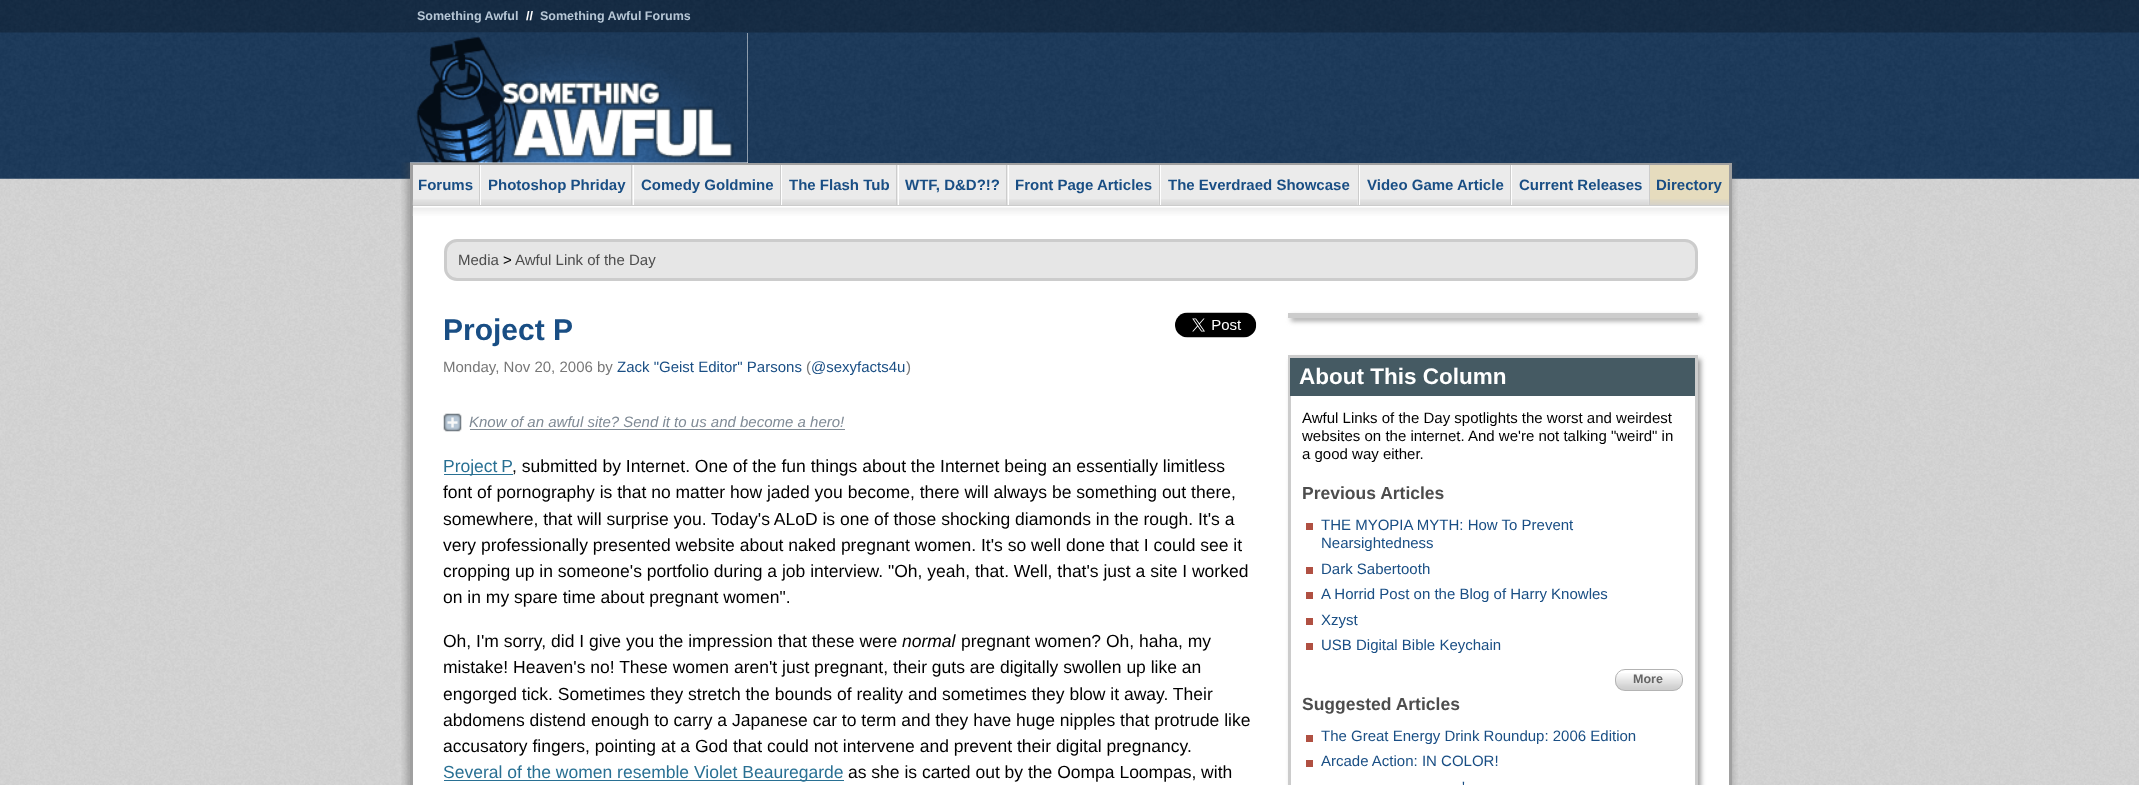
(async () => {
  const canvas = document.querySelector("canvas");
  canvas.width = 2139;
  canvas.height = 785;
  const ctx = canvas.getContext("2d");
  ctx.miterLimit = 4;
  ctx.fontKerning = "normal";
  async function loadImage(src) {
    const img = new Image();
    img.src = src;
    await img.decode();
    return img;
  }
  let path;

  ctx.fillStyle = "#ffffff";
  ctx.fillRect(0, 0, 2139, 785);
  ctx.drawImage(await loadImage("img/1.png"), 0, 178, 2139, 607);
  ctx.drawImage(await loadImage("img/2.png"), 0, 0, 2139, 179);
  ctx.drawImage(await loadImage("img/4.png"), 401, 162, 1337, 623);
  ctx.fillRect(410, 33, 338, 130);
  ctx.drawImage(await loadImage("img/3.png"), 410, 32, 338, 131);
  for (const [x, y, w, h, color] of [
    [413, 206, 1316, 579, "#ffffff"],
    [410, 163, 1321, 2, "#a0a0a0"],
    [1729, 163, 3, 622, "#a0a0a0"],
    [410, 163, 3, 622, "#a0a0a0"],
    [413, 165, 1236, 40, "#ebebeb"],
    [413, 205, 1316, 1, "#cccccc"],
  ]) {
    ctx.fillStyle = color;
    ctx.fillRect(x, y, w, h);
  }
  ctx.drawImage(await loadImage("img/5.png"), 412, 199, 67, 6);
  ctx.fillRect(479, 165, 1, 40);
  ctx.drawImage(await loadImage("img/6.png"), 481, 199, 150, 6);
  ctx.fillStyle = "#ffffff";
  ctx.fillRect(480, 165, 1, 40);
  ctx.fillStyle = "#cccccc";
  ctx.fillRect(631, 165, 1, 40);
  ctx.drawImage(await loadImage("img/7.png"), 632, 199, 148, 6);
  ctx.fillStyle = "#ffffff";
  ctx.fillRect(633, 165, 1, 40);
  ctx.fillStyle = "#cccccc";
  ctx.fillRect(780, 165, 1, 40);
  ctx.drawImage(await loadImage("img/8.png"), 782, 199, 114, 6);
  ctx.fillStyle = "#ffffff";
  ctx.fillRect(781, 165, 1, 40);
  ctx.fillStyle = "#cccccc";
  ctx.fillRect(896, 165, 1, 40);
  ctx.drawImage(await loadImage("img/9.png"), 897, 199, 109, 6);
  ctx.fillStyle = "#ffffff";
  ctx.fillRect(898, 165, 1, 40);
  ctx.fillStyle = "#cccccc";
  ctx.fillRect(1006, 165, 1, 40);
  ctx.drawImage(await loadImage("img/10.png"), 1007, 199, 152, 6);
  ctx.fillStyle = "#ffffff";
  ctx.fillRect(1008, 165, 1, 40);
  ctx.fillStyle = "#cccccc";
  ctx.fillRect(1159, 165, 1, 40);
  ctx.drawImage(await loadImage("img/11.png"), 1161, 199, 197, 6);
  ctx.fillStyle = "#ffffff";
  ctx.fillRect(1160, 165, 1, 40);
  ctx.fillStyle = "#cccccc";
  ctx.fillRect(1358, 165, 1, 40);
  ctx.drawImage(await loadImage("img/6.png"), 1360, 199, 150, 6);
  ctx.fillStyle = "#ffffff";
  ctx.fillRect(1359, 165, 1, 40);
  ctx.fillStyle = "#cccccc";
  ctx.fillRect(1510, 165, 1, 40);
  ctx.drawImage(await loadImage("img/12.png"), 1512, 199, 137, 6);
  for (const [x, y, w, h, color] of [
    [1511, 165, 1, 40, "#ffffff"],
    [1650, 165, 79, 40, "#e6dcbe"],
    [1649, 165, 1, 40, "#cccccc"],
  ]) {
    ctx.fillStyle = color;
    ctx.fillRect(x, y, w, h);
  }
  ctx.drawImage(await loadImage("img/13.png"), 1650, 199, 79, 6);
  ctx.drawImage(await loadImage("img/14.png"), 412, 207, 1317, 9);
  ctx.fillStyle = "#e6e6e6";
  ctx.beginPath();
  ctx.roundRect(445.5, 240.5, 1251, 39, 11.5);
  ctx.fill();
  ctx.strokeStyle = "#cccccc";
  ctx.lineWidth = 3;
  ctx.stroke();
  ctx.drawImage(await loadImage("img/15.png"), 1175, 312, 82, 26);
  ctx.drawImage(await loadImage("img/16.png"), 443, 413, 19, 19);
  for (const [x, y, w, h, color] of [
    [470, 429, 375, 1, "#808b96"],
    [444, 474, 69, 1, "#297093"],
    [444, 780, 400, 1, "#297093"],
  ]) {
    ctx.fillStyle = color;
    ctx.fillRect(x, y, w, h);
  }
  ctx.fillStyle = "#a0a0a0";
  ctx.filter = "blur(2.5px)";
  ctx.beginPath();
  ctx.rect(1291, 316, 410, 5);
  ctx.fill();
  ctx.filter = "none";
  ctx.fillStyle = "#cccccc";
  ctx.fillRect(1288, 313, 410, 5);
  ctx.save();
  path = new Path2D("M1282 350H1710V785H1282ZM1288 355H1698V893H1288Z");
  ctx.clip(path, "evenodd");
  ctx.fillStyle = "#a0a0a0";
  ctx.filter = "blur(2.5px)";
  ctx.beginPath();
  ctx.rect(1291, 359, 410, 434);
  ctx.fill();
  ctx.filter = "none";
  ctx.restore();
  ctx.strokeRect(1289.5, 356.5, 407, 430);
  for (const [x, y, w, h, color] of [
    [1290, 358, 405, 38, "#455a63"],
    [1306, 523, 7, 7, "#b05042"],
    [1306, 567, 7, 7, "#b05042"],
    [1306, 592, 7, 7, "#b05042"],
    [1306, 618, 7, 7, "#b05042"],
    [1306, 643, 7, 7, "#b05042"],
  ]) {
    ctx.fillStyle = color;
    ctx.fillRect(x, y, w, h);
  }
  ctx.drawImage(await loadImage("img/17.png"), 1615, 673, 68, 17);
  ctx.beginPath();
  ctx.roundRect(1615.5, 669.5, 67, 21, 9.5);
  ctx.strokeStyle = "#b3b3b3";
  ctx.lineWidth = 1;
  ctx.stroke();
  ctx.fillRect(1306, 735, 7, 7);
  ctx.fillRect(1306, 760, 7, 7);
  ctx.font = "bold 12.5px Liberation Sans";
  ctx.fillStyle = "#b7c7d6";
  ctx.fillText("Something Awful", 417, 20);
  ctx.fillStyle = "#ffffff";
  ctx.fillText("//", 526, 20);
  ctx.fillStyle = "#b7c7d6";
  ctx.fillText("Something Awful Forums", 540, 20);
  ctx.font = "bold 15px Liberation Sans";
  ctx.fillStyle = "#194e84";
  for (const [text, x, y] of [
    ["Forums", 418, 190],
    ["Photoshop Phriday", 488, 190],
    ["Comedy Goldmine", 641, 190],
    ["The Flash Tub", 789, 190],
    ["WTF, D&D?!?", 905, 190],
    ["Front Page Articles", 1015, 190],
    ["The Everdraed Showcase", 1168, 190],
    ["Video Game Article", 1367, 190],
    ["Current Releases", 1519, 190],
    ["Directory", 1656, 190],
  ]) {
    ctx.fillText(text, x, y);
  }
  ctx.font = "15px Liberation Sans";
  ctx.fillStyle = "#4d4d4d";
  ctx.fillText("Media", 458, 265);
  ctx.fillStyle = "#000000";
  ctx.fillText(">", 503, 265);
  ctx.fillStyle = "#4d4d4d";
  ctx.fillText("Awful Link of the Day", 515, 265);
  ctx.font = "bold 30px Liberation Sans";
  ctx.fillStyle = "#194e84";
  ctx.fillText("Project P", 443, 340);
  ctx.font = "15px Liberation Sans";
  ctx.fillStyle = "#777777";
  ctx.fillText("Monday, Nov 20, 2006 by", 443, 372);
  ctx.fillStyle = "#194e84";
  ctx.fillText("Zack \"Geist Editor\" Parsons", 617, 372);
  ctx.fillStyle = "#777777";
  ctx.fillText("(", 806, 372);
  ctx.fillStyle = "#194e84";
  ctx.fillText("@sexyfacts4u", 811, 372);
  ctx.fillStyle = "#777777";
  ctx.fillText(")", 906, 372);
  ctx.font = "italic 15px Liberation Sans";
  ctx.fillStyle = "#808b96";
  ctx.fillText("Know of an awful site? Send it to us and become a hero!", 469, 427);
  ctx.wordSpacing = "-1px";
  ctx.font = "17.5px Liberation Sans";
  ctx.fillStyle = "#297093";
  ctx.fillText("Project P", 443, 472);
  ctx.wordSpacing = "0px";
  ctx.fillStyle = "#000000";
  for (const [text, x, y] of [
    [", submitted by Internet. One of the fun things about the Internet being an essentially limitless", 512, 472],
    ["font of pornography is that no matter how jaded you become, there will always be something out there,", 443, 498],
    ["somewhere, that will surprise you. Today's ALoD is one of those shocking diamonds in the rough. It's a", 443, 525],
    ["very professionally presented website about naked pregnant women. It's so well done that I could see it", 443, 551],
    ["cropping up in someone's portfolio during a job interview. \"Oh, yeah, that. Well, that's just a site I worked", 443, 577],
    ["on in my spare time about pregnant women\".", 443, 603],
    ["Oh, I'm sorry, did I give you the impression that these were", 443, 647],
  ]) {
    ctx.fillText(text, x, y);
  }
  ctx.font = "italic 17.5px Liberation Sans";
  ctx.fillText("normal", 902, 647);
  ctx.font = "17.5px Liberation Sans";
  for (const [text, x, y] of [
    ["pregnant women? Oh, haha, my", 961, 647],
    ["mistake! Heaven's no! These women aren't just pregnant, their guts are digitally swollen up like an", 443, 673],
    ["engorged tick. Sometimes they stretch the bounds of reality and sometimes they blow it away. Their", 443, 700],
    ["abdomens distend enough to carry a Japanese car to term and they have huge nipples that protrude like", 443, 726],
    ["accusatory fingers, pointing at a God that could not intervene and prevent their digital pregnancy.", 443, 752],
  ]) {
    ctx.fillText(text, x, y);
  }
  ctx.fillStyle = "#297093";
  ctx.fillText("Several of the women resemble Violet Beauregarde", 443, 778);
  ctx.fillStyle = "#000000";
  ctx.fillText("as she is carted out by the Oompa Loompas, with", 848, 778);
  ctx.font = "bold 22.5px Liberation Sans";
  ctx.fillStyle = "#ffffff";
  ctx.fillText("About This Column", 1299, 384);
  ctx.font = "15px Liberation Sans";
  ctx.fillStyle = "#000000";
  for (const [text, x, y] of [
    ["Awful Links of the Day spotlights the worst and weirdest", 1302, 423],
    ["websites on the internet.", 1302, 441],
    ["And we're not talking \"weird\" in", 1468, 441],
    ["a good way either.", 1302, 459],
  ]) {
    ctx.fillText(text, x, y);
  }
  ctx.font = "bold 17.5px Liberation Sans";
  ctx.fillStyle = "#4d4d4d";
  ctx.fillText("Previous Articles", 1302, 499);
  ctx.font = "15px Liberation Sans";
  ctx.fillStyle = "#194e84";
  for (const [text, x, y] of [
    ["THE MYOPIA MYTH: How To Prevent", 1321, 530],
    ["Nearsightedness", 1321, 548],
    ["Dark Sabertooth", 1321, 574],
    ["A Horrid Post on the Blog of Harry Knowles", 1321, 599],
    ["Xzyst", 1321, 625],
    ["USB Digital Bible Keychain", 1321, 650],
  ]) {
    ctx.fillText(text, x, y);
  }
  ctx.font = "bold 12.5px Liberation Sans";
  ctx.fillStyle = "#666666";
  ctx.fillText("More", 1633, 683);
  ctx.font = "bold 17.5px Liberation Sans";
  ctx.fillStyle = "#4d4d4d";
  ctx.fillText("Suggested Articles", 1302, 710);
  ctx.font = "15px Liberation Sans";
  ctx.fillStyle = "#194e84";
  for (const [text, x, y] of [
    ["The Great Energy Drink Roundup: 2006 Edition", 1321, 741],
    ["Arcade Action: IN COLOR!", 1321, 766],
    ["'", 1462, 792],
  ]) {
    ctx.fillText(text, x, y);
  }
})();
